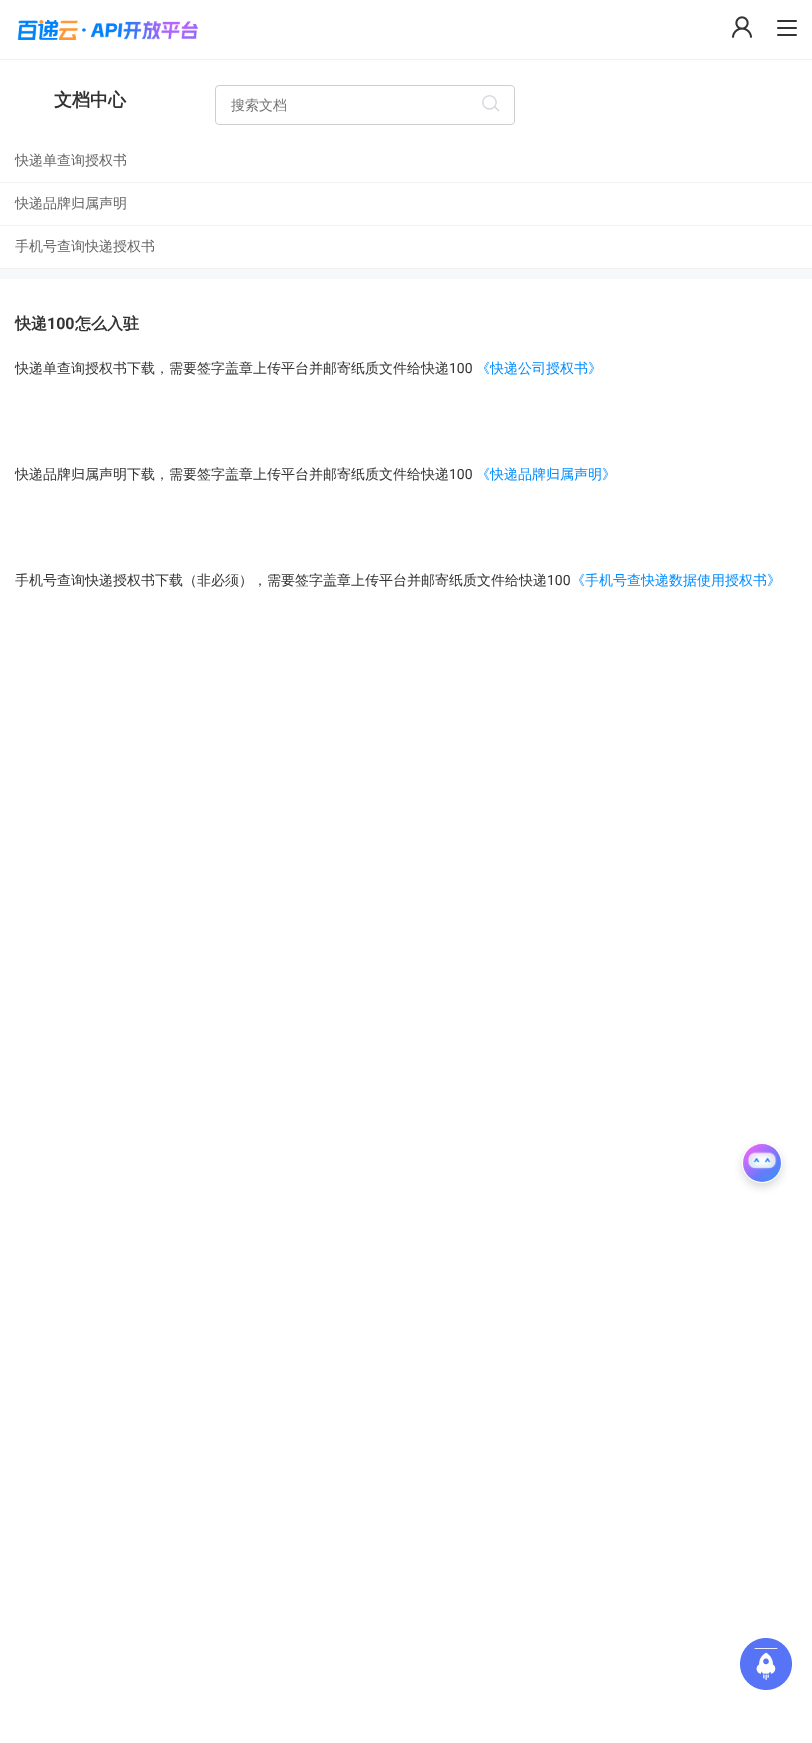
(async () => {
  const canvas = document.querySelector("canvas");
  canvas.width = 812;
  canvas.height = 1743;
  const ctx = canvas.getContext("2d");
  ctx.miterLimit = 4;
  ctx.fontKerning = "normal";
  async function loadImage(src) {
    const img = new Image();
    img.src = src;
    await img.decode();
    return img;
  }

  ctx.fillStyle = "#ffffff";
  ctx.fillRect(0, 0, 812, 1743);
  ctx.fillStyle = "#f1f1f1";
  ctx.fillRect(0, 59, 812, 1);
  ctx.drawImage(await loadImage("img/1.png"), 17, 20, 182, 20);
  ctx.drawImage(await loadImage("img/2.png"), 731, 16, 22, 22);
  ctx.fillStyle = "#333333";
  ctx.beginPath();
  ctx.roundRect(777, 20, 20, 2, 1);
  ctx.fill();
  ctx.beginPath();
  ctx.roundRect(777, 27, 20, 2, 1);
  ctx.fill();
  ctx.beginPath();
  ctx.roundRect(777, 34, 20, 2, 1);
  ctx.fill();
  ctx.beginPath();
  ctx.roundRect(215.5, 85.5, 299, 39, 3.5);
  ctx.strokeStyle = "#cecece";
  ctx.stroke();
  ctx.drawImage(await loadImage("img/3.png"), 482, 95, 18, 17);
  for (const [x, y, w, h, color] of [
    [0, 269, 812, 10, "#f7f8fa"],
    [0, 182, 812, 1, "#f1f1f1"],
    [0, 225, 812, 1, "#f1f1f1"],
    [0, 268, 812, 1, "#f1f1f1"],
  ]) {
    ctx.fillStyle = color;
    ctx.fillRect(x, y, w, h);
  }
  ctx.fillStyle = "rgba(7, 12, 20, 0.16)";
  ctx.filter = "blur(4px)";
  ctx.beginPath();
  ctx.roundRect(742, 1147, 40, 40, 20);
  ctx.fill();
  ctx.filter = "none";
  ctx.fillStyle = "#ffffff";
  ctx.beginPath();
  ctx.arc(762, 1163, 20, 0, Math.PI * 2);
  ctx.fill();
  ctx.drawImage(await loadImage("img/4.png"), 743, 1144, 38, 38);
  ctx.drawImage(await loadImage("img/5.png"), 740, 1638, 52, 52);
  ctx.font = "bold 18px WenQuanYi Zen Hei";
  ctx.fillStyle = "#333333";
  ctx.fillText("文档中心", 54, 106);
  ctx.font = "500 14px WenQuanYi Zen Hei";
  ctx.fillStyle = "#757575";
  ctx.fillText("搜索文档", 231, 110);
  ctx.fillStyle = "#666666";
  for (const [text, x, y] of [
    ["快递单查询授权书", 15, 165],
    ["快递品牌归属声明", 15, 208],
    ["手机号查询快递授权书", 15, 251],
  ]) {
    ctx.fillText(text, x, y);
  }
  ctx.font = "bold 16px WenQuanYi Zen Hei";
  ctx.fillStyle = "#333333";
  ctx.fillText("快递", 15, 329);
  ctx.font = "bold 16px Roboto";
  ctx.fillText("100", 47, 329);
  ctx.font = "bold 16px WenQuanYi Zen Hei";
  ctx.fillText("怎么入驻", 75, 329);
  ctx.font = "500 14px WenQuanYi Zen Hei";
  ctx.fillText("快递单查询授权书下载，需要签字盖章上传平台并邮寄纸质文件给快递", 15, 373);
  ctx.font = "14px Roboto";
  ctx.fillText("100", 449, 373);
  ctx.font = "500 14px WenQuanYi Zen Hei";
  ctx.fillStyle = "#008cff";
  ctx.fillText("《快递公司授权书》", 476, 373);
  ctx.fillStyle = "#333333";
  ctx.fillText("快递品牌归属声明下载，需要签字盖章上传平台并邮寄纸质文件给快递", 15, 479);
  ctx.font = "14px Roboto";
  ctx.fillText("100", 449, 479);
  ctx.font = "500 14px WenQuanYi Zen Hei";
  ctx.fillStyle = "#008cff";
  ctx.fillText("《快递品牌归属声明》", 476, 479);
  ctx.fillStyle = "#333333";
  ctx.fillText("手机号查询快递授权书下载（非必须），需要签字盖章上传平台并邮寄纸质文件给快递", 15, 585);
  ctx.font = "14px Roboto";
  ctx.fillText("100", 547, 585);
  ctx.font = "500 14px WenQuanYi Zen Hei";
  ctx.fillStyle = "#008cff";
  ctx.fillText("《手机号查快递数据使用授权书》", 571, 585);
})();
